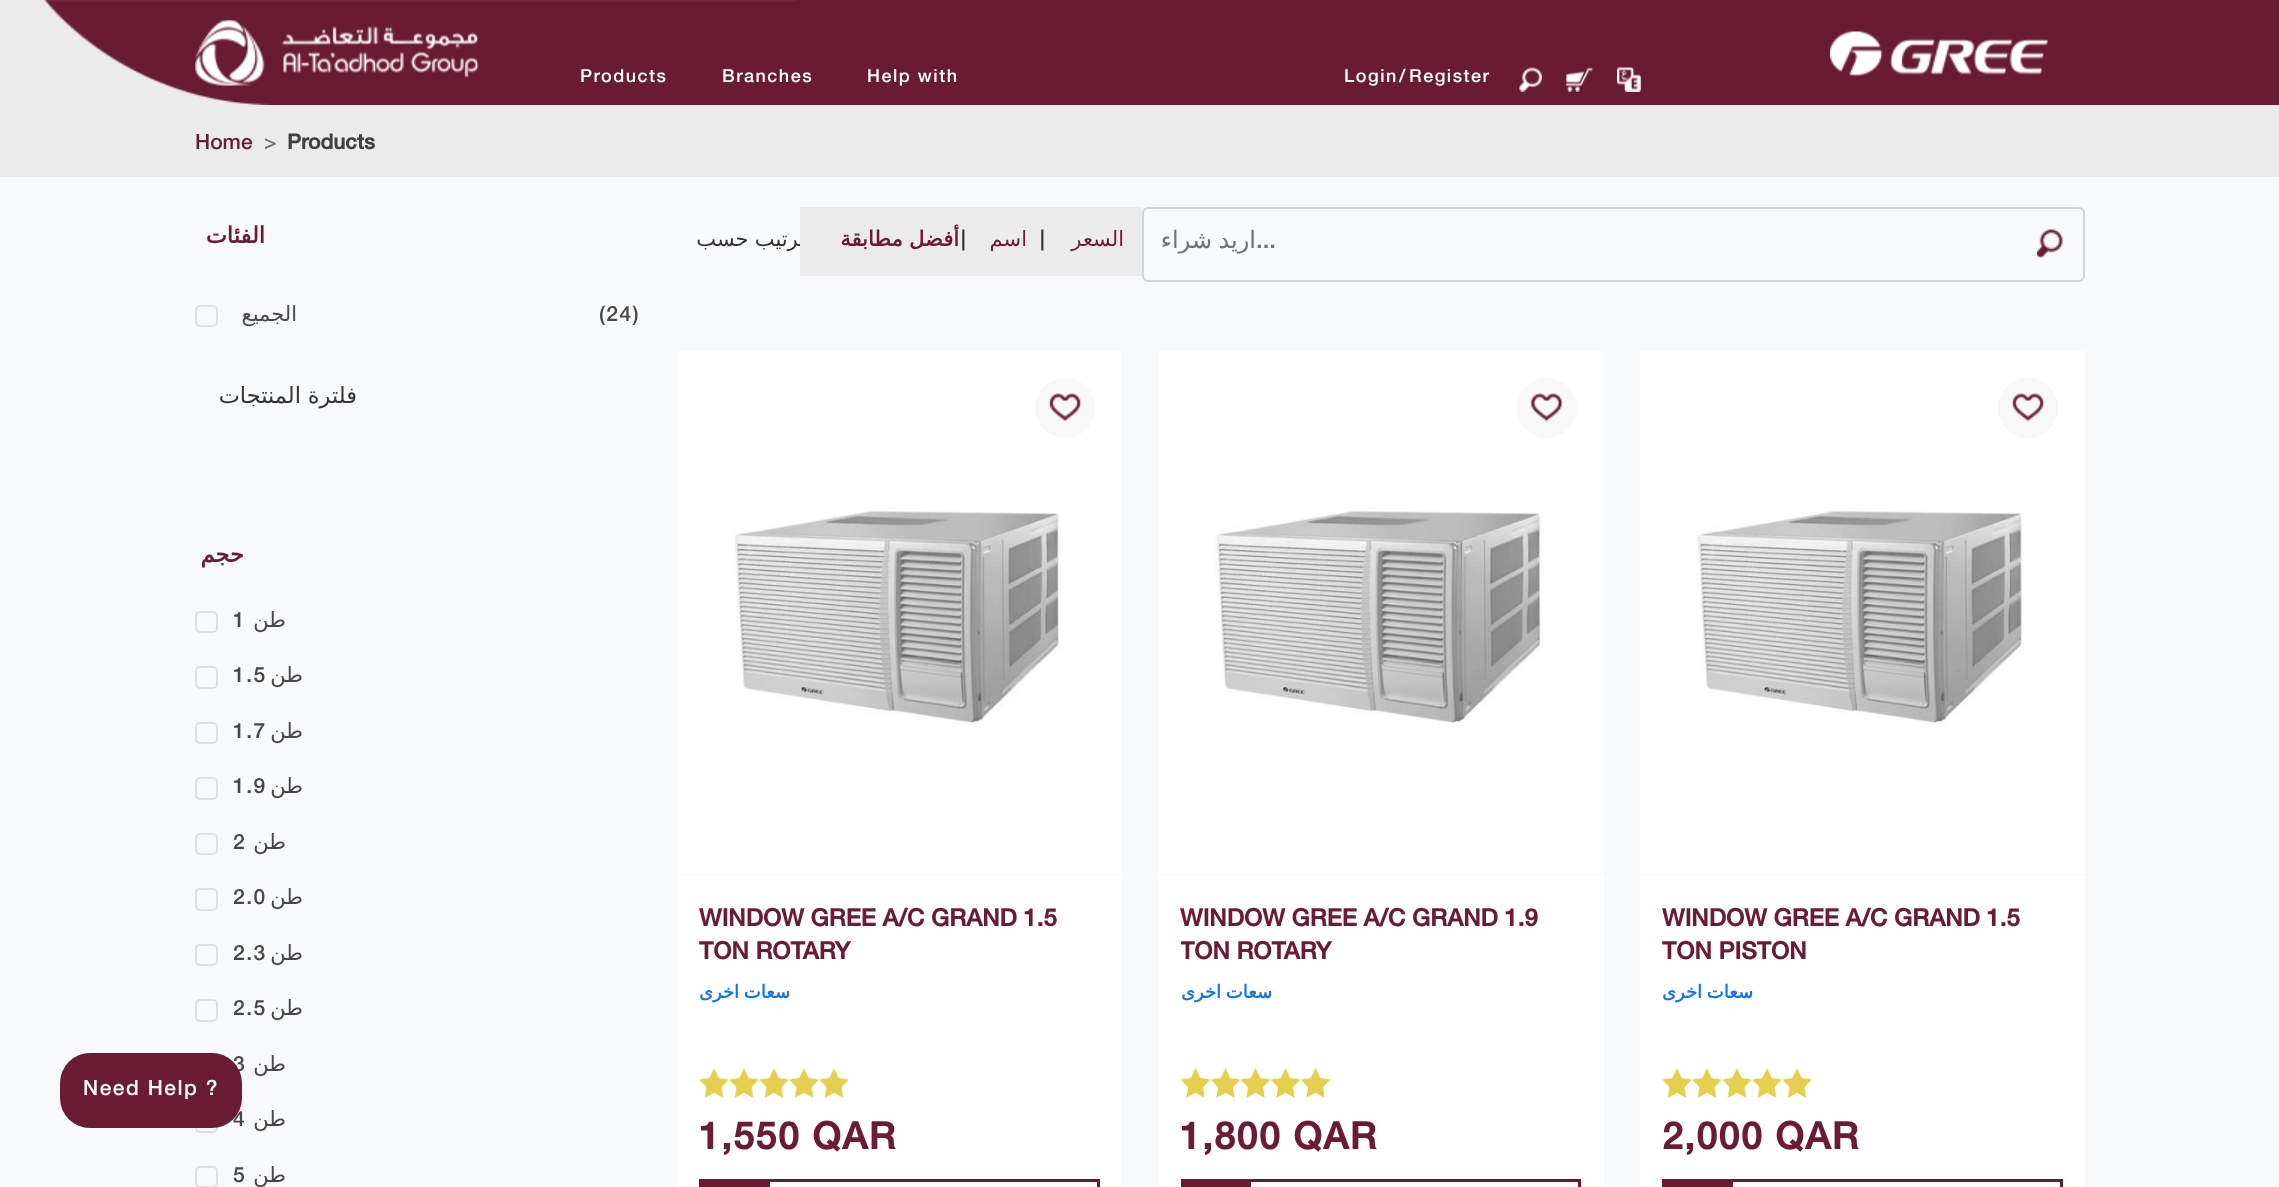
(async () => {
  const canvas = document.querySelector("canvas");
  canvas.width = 2279;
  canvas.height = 1187;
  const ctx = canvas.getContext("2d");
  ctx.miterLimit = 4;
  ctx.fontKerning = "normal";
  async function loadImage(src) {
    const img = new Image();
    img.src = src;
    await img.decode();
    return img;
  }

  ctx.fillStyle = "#ebebec";
  ctx.fillRect(0, 0, 2279, 1187);
  ctx.drawImage(await loadImage("img/1.png"), 44, 0, 2235, 105);
  ctx.drawImage(await loadImage("img/2.png"), 195, 20, 284, 66);
  ctx.drawImage(await loadImage("img/3.png"), 1519, 67, 23, 25);
  ctx.drawImage(await loadImage("img/4.png"), 1566, 67, 27, 25);
  ctx.drawImage(await loadImage("img/5.png"), 1617, 67, 24, 25);
  ctx.drawImage(await loadImage("img/6.png"), 1830, 31, 218, 45);
  ctx.fillStyle = "#f8f9fa";
  ctx.fillRect(0, 177, 2279, 1010);
  ctx.beginPath();
  ctx.roundRect(196, 306, 21, 20, 4);
  ctx.strokeStyle = "#dfdfdf";
  ctx.lineWidth = 2;
  ctx.stroke();
  ctx.beginPath();
  ctx.roundRect(196, 612, 21, 20, 4);
  ctx.stroke();
  ctx.beginPath();
  ctx.roundRect(196, 667, 21, 21, 4);
  ctx.stroke();
  ctx.beginPath();
  ctx.roundRect(196, 723, 21, 20, 4);
  ctx.stroke();
  ctx.beginPath();
  ctx.roundRect(196, 778, 21, 21, 4);
  ctx.stroke();
  ctx.beginPath();
  ctx.roundRect(196, 834, 21, 20, 4);
  ctx.stroke();
  ctx.beginPath();
  ctx.roundRect(196, 889, 21, 21, 4);
  ctx.stroke();
  ctx.beginPath();
  ctx.roundRect(196, 945, 21, 20, 4);
  ctx.stroke();
  ctx.beginPath();
  ctx.roundRect(196, 1000, 21, 21, 4);
  ctx.stroke();
  ctx.beginPath();
  ctx.roundRect(196, 1111, 21, 21, 4);
  ctx.stroke();
  ctx.beginPath();
  ctx.roundRect(196, 1167, 21, 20, 4);
  ctx.stroke();
  ctx.beginPath();
  ctx.roundRect(1143, 208, 941, 73, 5);
  ctx.strokeStyle = "#ced4da";
  ctx.stroke();
  ctx.drawImage(await loadImage("img/7.png"), 2037, 229, 26, 29);
  ctx.drawImage(await loadImage("img/8.png"), 677, 351, 445, 523);
  ctx.fillStyle = "#f8f8f8";
  ctx.beginPath();
  ctx.arc(1065, 408, 30, 0, Math.PI * 2);
  ctx.fill();
  ctx.drawImage(await loadImage("img/9.png"), 1048, 393, 34, 29);
  ctx.fillStyle = "#ffffff";
  ctx.fillRect(677, 875, 445, 312);
  ctx.drawImage(await loadImage("img/10.png"), 699, 1068, 30, 30);
  ctx.drawImage(await loadImage("img/10.png"), 729, 1068, 30, 30);
  ctx.drawImage(await loadImage("img/11.png"), 759, 1068, 30, 30);
  ctx.drawImage(await loadImage("img/12.png"), 789, 1068, 30, 30);
  ctx.drawImage(await loadImage("img/12.png"), 819, 1068, 30, 30);
  ctx.fillStyle = "#691b33";
  ctx.fillRect(699, 1179, 68, 8);
  ctx.strokeStyle = "#691b33";
  ctx.lineWidth = 3;
  ctx.strokeRect(768.5, 1180.5, 330, 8);
  ctx.drawImage(await loadImage("img/13.png"), 1158, 351, 445, 523);
  ctx.fillStyle = "#f8f8f8";
  ctx.beginPath();
  ctx.arc(1547, 408, 30, 0, Math.PI * 2);
  ctx.fill();
  ctx.drawImage(await loadImage("img/14.png"), 1530, 393, 33, 29);
  ctx.fillStyle = "#ffffff";
  ctx.fillRect(1158, 875, 446, 312);
  ctx.drawImage(await loadImage("img/15.png"), 1180, 1068, 31, 30);
  ctx.drawImage(await loadImage("img/16.png"), 1210, 1068, 31, 30);
  ctx.drawImage(await loadImage("img/16.png"), 1240, 1068, 31, 30);
  ctx.drawImage(await loadImage("img/17.png"), 1270, 1068, 31, 30);
  ctx.drawImage(await loadImage("img/17.png"), 1300, 1068, 31, 30);
  ctx.fillStyle = "#691b33";
  ctx.fillRect(1181, 1179, 67, 8);
  ctx.strokeRect(1249.5, 1180.5, 330, 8);
  ctx.drawImage(await loadImage("img/8.png"), 1640, 351, 445, 523);
  ctx.fillStyle = "#f8f8f8";
  ctx.beginPath();
  ctx.arc(2028, 408, 30, 0, Math.PI * 2);
  ctx.fill();
  ctx.drawImage(await loadImage("img/18.png"), 2011, 393, 34, 29);
  ctx.fillStyle = "#ffffff";
  ctx.fillRect(1640, 875, 445, 312);
  ctx.drawImage(await loadImage("img/10.png"), 1662, 1068, 30, 30);
  ctx.drawImage(await loadImage("img/10.png"), 1692, 1068, 30, 30);
  ctx.drawImage(await loadImage("img/10.png"), 1722, 1068, 30, 30);
  ctx.drawImage(await loadImage("img/19.png"), 1752, 1068, 30, 30);
  ctx.drawImage(await loadImage("img/10.png"), 1782, 1068, 30, 30);
  ctx.fillStyle = "#691b33";
  ctx.fillRect(1662, 1179, 68, 8);
  ctx.strokeRect(1731.5, 1180.5, 330, 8);
  ctx.letterSpacing = "1.5px";
  ctx.font = "500 18px Helvetica Neue";
  ctx.fillStyle = "#ffffff";
  for (const [text, x, y] of [
    ["Products", 580, 82],
    ["Branches", 722, 82],
    ["Help with", 867, 82],
    ["Login", 1344, 82],
    ["/", 1399, 82],
    ["Register", 1409, 82],
  ]) {
    ctx.fillText(text, x, y);
  }
  ctx.letterSpacing = "0px";
  ctx.font = "500 21px Helvetica Neue";
  ctx.fillStyle = "#691c33";
  ctx.fillText("Home", 195, 149);
  ctx.letterSpacing = "3px";
  ctx.fillStyle = "#6c757d";
  ctx.fillText(">", 264, 149);
  ctx.letterSpacing = "0px";
  ctx.font = "bold 21px Helvetica Neue";
  ctx.fillStyle = "#414042";
  ctx.fillText("Products", 287, 149);
  ctx.letterSpacing = "1.75px";
  ctx.direction = "rtl";
  ctx.font = "bold 22.5px DejaVu Sans";
  ctx.fillStyle = "#691c33";
  ctx.fillText("الفئات", 265, 243);
  ctx.letterSpacing = "1.5px";
  ctx.font = "21px DejaVu Sans";
  ctx.fillStyle = "#474747";
  ctx.fillText("الجميع", 297, 321);
  ctx.direction = "ltr";
  ctx.font = "500 21px Helvetica Neue";
  ctx.fillText("(24)", 599, 321);
  ctx.letterSpacing = "1.75px";
  ctx.wordSpacing = "-2px";
  ctx.direction = "rtl";
  ctx.font = "22.5px DejaVu Sans";
  ctx.fillStyle = "#343434";
  ctx.fillText("فلترة المنتجات", 357, 403);
  ctx.wordSpacing = "0px";
  ctx.font = "bold 22.5px DejaVu Sans";
  ctx.fillStyle = "#691c33";
  ctx.fillText("حجم", 244, 562);
  ctx.letterSpacing = "1.5px";
  ctx.direction = "ltr";
  ctx.font = "500 21px Helvetica Neue";
  ctx.fillStyle = "#474747";
  ctx.fillText("1", 233, 627);
  ctx.direction = "rtl";
  ctx.font = "21px DejaVu Sans";
  ctx.fillText("طن", 286, 627);
  ctx.direction = "ltr";
  ctx.font = "500 21px Helvetica Neue";
  ctx.fillText("1.5", 233, 682);
  ctx.direction = "rtl";
  ctx.font = "21px DejaVu Sans";
  ctx.fillText("طن", 303, 682);
  ctx.direction = "ltr";
  ctx.font = "500 21px Helvetica Neue";
  ctx.fillText("1.7", 233, 738);
  ctx.direction = "rtl";
  ctx.font = "21px DejaVu Sans";
  ctx.fillText("طن", 303, 738);
  ctx.direction = "ltr";
  ctx.font = "500 21px Helvetica Neue";
  ctx.fillText("1.9", 233, 793);
  ctx.direction = "rtl";
  ctx.font = "21px DejaVu Sans";
  ctx.fillText("طن", 303, 793);
  ctx.direction = "ltr";
  ctx.font = "500 21px Helvetica Neue";
  ctx.fillText("2", 233, 849);
  ctx.direction = "rtl";
  ctx.font = "21px DejaVu Sans";
  ctx.fillText("طن", 286, 849);
  ctx.direction = "ltr";
  ctx.font = "500 21px Helvetica Neue";
  ctx.fillText("2.0", 233, 904);
  ctx.direction = "rtl";
  ctx.font = "21px DejaVu Sans";
  ctx.fillText("طن", 303, 904);
  ctx.direction = "ltr";
  ctx.font = "500 21px Helvetica Neue";
  ctx.fillText("2.3", 233, 960);
  ctx.direction = "rtl";
  ctx.font = "21px DejaVu Sans";
  ctx.fillText("طن", 303, 960);
  ctx.direction = "ltr";
  ctx.font = "500 21px Helvetica Neue";
  ctx.fillText("2.5", 233, 1015);
  ctx.direction = "rtl";
  ctx.font = "21px DejaVu Sans";
  ctx.fillText("طن", 303, 1015);
  ctx.direction = "ltr";
  ctx.font = "500 21px Helvetica Neue";
  ctx.fillText("3", 233, 1071);
  ctx.direction = "rtl";
  ctx.font = "21px DejaVu Sans";
  ctx.fillText("طن", 286, 1071);
  ctx.direction = "ltr";
  ctx.font = "500 21px Helvetica Neue";
  ctx.fillText("4", 233, 1126);
  ctx.fillStyle = "#691c33";
  ctx.beginPath();
  ctx.roundRect(60, 1053, 182, 75, 30);
  ctx.fill();
  ctx.fillStyle = "#f8f8f8";
  ctx.fillText("Need Help ?", 83, 1095);
  ctx.direction = "rtl";
  ctx.font = "21px DejaVu Sans";
  ctx.fillStyle = "#474747";
  ctx.fillText("طن", 286, 1126);
  ctx.direction = "ltr";
  ctx.font = "500 21px Helvetica Neue";
  ctx.fillText("5", 233, 1182);
  ctx.direction = "rtl";
  ctx.font = "21px DejaVu Sans";
  ctx.fillText("طن", 286, 1182);
  ctx.wordSpacing = "-2px";
  ctx.fillStyle = "#343434";
  ctx.fillText("ترتيب حسب", 805, 246);
  ctx.fillStyle = "#ebebeb";
  ctx.fillRect(800, 207, 342, 69);
  ctx.font = "bold 21px DejaVu Sans";
  ctx.fillStyle = "#691c33";
  ctx.fillText("أفضل مطابقة", 959, 246);
  ctx.wordSpacing = "0px";
  ctx.direction = "ltr";
  ctx.font = "500 21px Helvetica Neue";
  ctx.fillStyle = "#343434";
  ctx.fillText("|", 961, 246);
  ctx.direction = "rtl";
  ctx.font = "21px DejaVu Sans";
  ctx.fillStyle = "#691c33";
  ctx.fillText("اسم", 1027, 246);
  ctx.direction = "ltr";
  ctx.font = "500 21px Helvetica Neue";
  ctx.fillStyle = "#343434";
  ctx.fillText("|", 1040, 246);
  ctx.direction = "rtl";
  ctx.font = "21px DejaVu Sans";
  ctx.fillStyle = "#691c33";
  ctx.fillText("السعر", 1124, 246);
  ctx.letterSpacing = "0px";
  ctx.font = "24px DejaVu Sans";
  ctx.fillStyle = "#6c757d";
  ctx.fillText("شراء", 1212, 248);
  ctx.fillText("اريد", 1256, 248);
  ctx.direction = "ltr";
  ctx.font = "500 24px Helvetica Neue";
  ctx.fillText("...", 1256, 248);
  ctx.font = "bold 24px Helvetica Neue";
  ctx.fillStyle = "#691c33";
  ctx.fillText("WINDOW GREE A/C GRAND 1.5", 699, 926);
  ctx.fillText("TON ROTARY", 699, 959);
  ctx.wordSpacing = "-1px";
  ctx.direction = "rtl";
  ctx.font = "bold 18px DejaVu Sans";
  ctx.fillStyle = "#1675e0";
  ctx.fillText("سعات اخرى", 790, 998);
  ctx.letterSpacing = "1.5px";
  ctx.wordSpacing = "0px";
  ctx.direction = "ltr";
  ctx.font = "bold 37.5px Helvetica Neue";
  ctx.fillStyle = "#691c33";
  ctx.fillText("1,550 QAR", 699, 1149);
  ctx.letterSpacing = "0px";
  ctx.font = "bold 24px Helvetica Neue";
  ctx.fillText("WINDOW GREE A/C GRAND 1.9", 1180, 926);
  ctx.save();
  ctx.beginPath();
  ctx.rect(1181, 905, 400, 72);
  ctx.clip();
  ctx.fillText("TON ROTARY", 1180, 959);
  ctx.restore();
  ctx.wordSpacing = "-1px";
  ctx.direction = "rtl";
  ctx.font = "bold 18px DejaVu Sans";
  ctx.fillStyle = "#1675e0";
  ctx.fillText("سعات اخرى", 1272, 998);
  ctx.letterSpacing = "1.5px";
  ctx.wordSpacing = "0px";
  ctx.direction = "ltr";
  ctx.font = "bold 37.5px Helvetica Neue";
  ctx.fillStyle = "#691c33";
  ctx.fillText("1,800 QAR", 1180, 1149);
  ctx.letterSpacing = "0px";
  ctx.font = "bold 24px Helvetica Neue";
  ctx.fillText("WINDOW GREE A/C GRAND 1.5", 1662, 926);
  ctx.fillText("TON PISTON", 1662, 959);
  ctx.wordSpacing = "-1px";
  ctx.direction = "rtl";
  ctx.font = "bold 18px DejaVu Sans";
  ctx.fillStyle = "#1675e0";
  ctx.fillText("سعات اخرى", 1753, 998);
  ctx.letterSpacing = "1.5px";
  ctx.wordSpacing = "0px";
  ctx.direction = "ltr";
  ctx.font = "bold 37.5px Helvetica Neue";
  ctx.fillStyle = "#691c33";
  ctx.fillText("2,000 QAR", 1662, 1149);
})();
